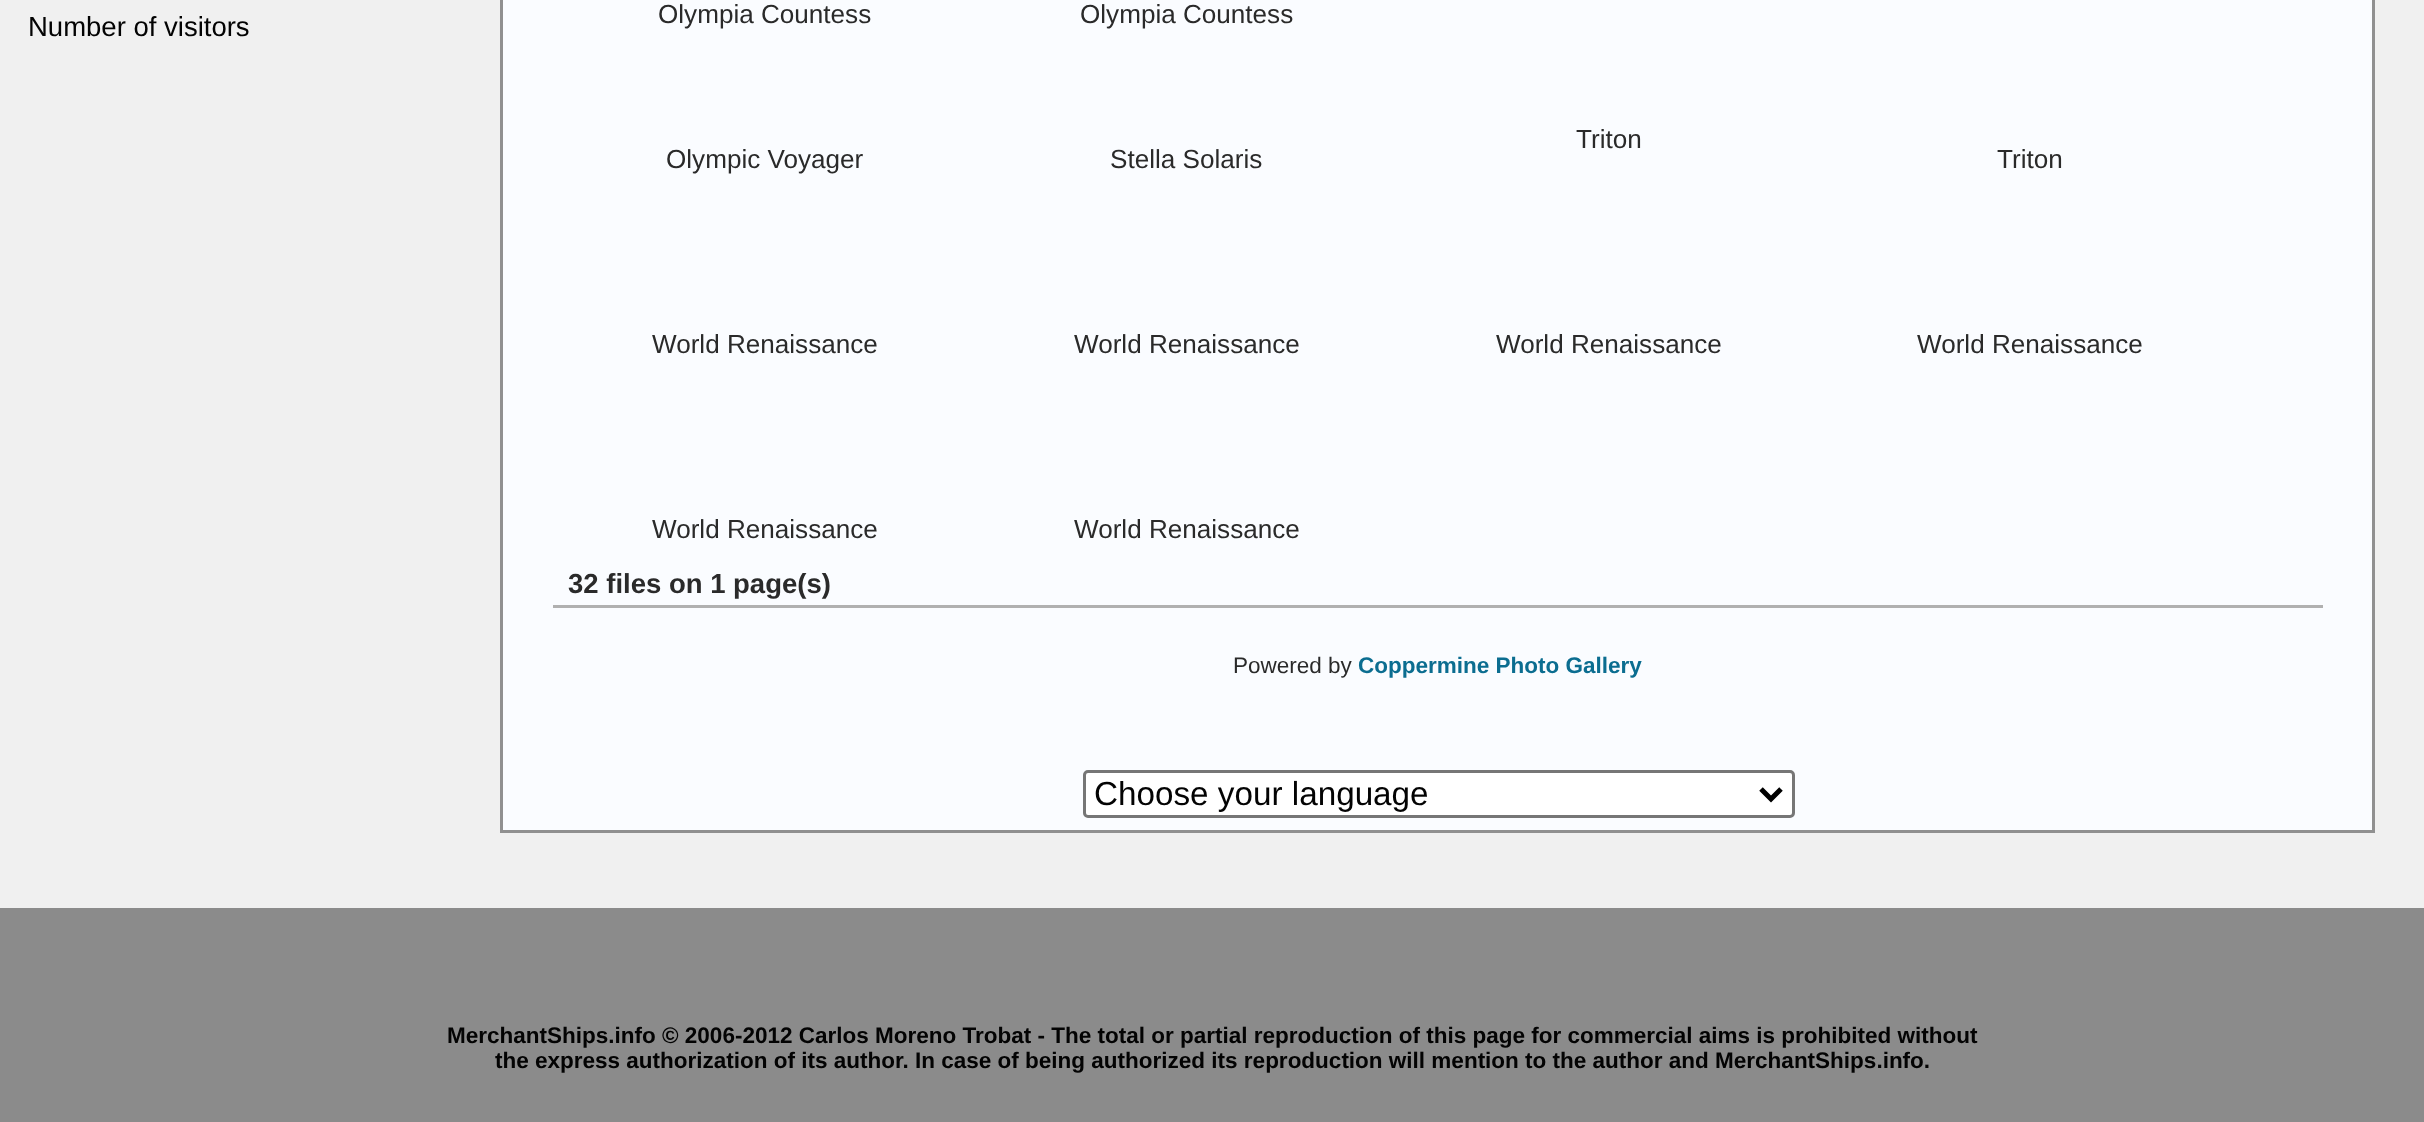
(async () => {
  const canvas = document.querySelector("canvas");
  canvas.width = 2424;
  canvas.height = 1122;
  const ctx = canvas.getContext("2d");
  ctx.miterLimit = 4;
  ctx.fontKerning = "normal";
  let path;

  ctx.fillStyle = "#8b8b8b";
  ctx.fillRect(0, 0, 2424, 1122);
  ctx.fillStyle = "#f0f0f0";
  ctx.fillRect(0, 0, 2424, 908);
  ctx.fillStyle = "#fafcff";
  ctx.beginPath();
  ctx.rect(501.5, -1.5, 1872, 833);
  ctx.fill();
  ctx.strokeStyle = "#909090";
  ctx.lineWidth = 3;
  ctx.stroke();
  ctx.fillStyle = "#b0b0b0";
  ctx.fillRect(553, 605, 1770, 3);
  ctx.fillStyle = "#ffffff";
  ctx.beginPath();
  ctx.roundRect(1084.5, 771.5, 709, 45, 3.5);
  ctx.fill();
  ctx.strokeStyle = "#767676";
  ctx.stroke();
  path = new Path2D("M1761 789L1771 799L1781 789");
  ctx.strokeStyle = "#000000";
  ctx.lineWidth = 5;
  ctx.stroke(path);
  ctx.font = "27.5px Liberation Sans";
  ctx.fillStyle = "#030303";
  ctx.fillText("Number of visitors", 28, 36);
  ctx.font = "26.1px Liberation Sans";
  ctx.fillStyle = "#2a2a2a";
  for (const [text, x, y] of [
    ["Olympia Countess", 658, 23],
    ["Olympia Countess", 1080, 23],
    ["Triton", 1576, 148],
    ["Olympic Voyager", 666, 168],
    ["Stella Solaris", 1110, 168],
    ["Triton", 1997, 168],
    ["World Renaissance", 652, 353],
    ["World Renaissance", 1074, 353],
    ["World Renaissance", 1496, 353],
    ["World Renaissance", 1917, 353],
    ["World Renaissance", 652, 538],
    ["World Renaissance", 1074, 538],
  ]) {
    ctx.fillText(text, x, y);
  }
  ctx.font = "bold 27.5px Liberation Sans";
  ctx.fillText("32 files on 1 page(s)", 568, 593);
  ctx.font = "22.5px Liberation Sans";
  ctx.fillText("Powered by", 1233, 673);
  ctx.font = "bold 22.5px Liberation Sans";
  ctx.fillStyle = "#0b6d90";
  ctx.fillText("Coppermine Photo Gallery", 1358, 673);
  ctx.font = "33.25px Liberation Sans";
  ctx.fillStyle = "#030303";
  ctx.fillText("Choose your language", 1094, 805);
  ctx.font = "bold 22.5px Liberation Sans";
  ctx.fillText("MerchantShips.info © 2006-2012 Carlos Moreno Trobat - The total or partial reproduction of this page for commercial aims is prohibited without", 447, 1043);
  ctx.fillText("the express authorization of its author. In case of being authorized its reproduction will mention to the author and MerchantShips.info.", 495, 1068);
})();
